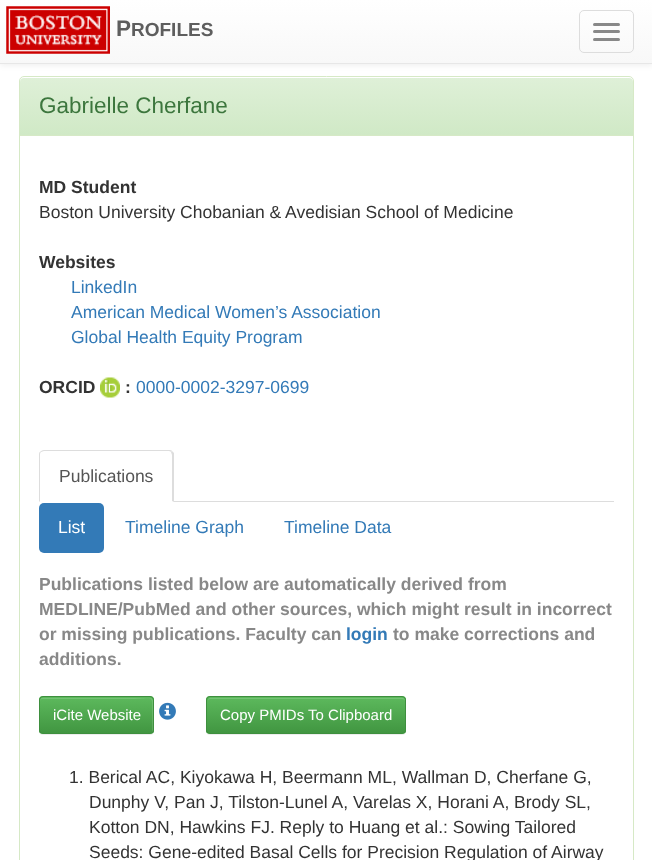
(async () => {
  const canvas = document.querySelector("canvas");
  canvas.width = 652;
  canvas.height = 860;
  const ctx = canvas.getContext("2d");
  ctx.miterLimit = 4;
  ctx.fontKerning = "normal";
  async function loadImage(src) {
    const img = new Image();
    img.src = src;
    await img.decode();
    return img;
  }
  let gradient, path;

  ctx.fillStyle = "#ffffff";
  ctx.fillRect(0, 0, 652, 860);
  ctx.fillStyle = "rgba(0, 0, 0, 0.07)";
  ctx.filter = "blur(3px)";
  ctx.beginPath();
  ctx.rect(0, 1, 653, 64);
  ctx.fill();
  ctx.filter = "none";
  gradient = ctx.createLinearGradient(326, 0, 326, 63);
  gradient.addColorStop(0, "#ffffff");
  gradient.addColorStop(1, "#f8f8f8");
  ctx.fillStyle = gradient;
  ctx.fillRect(0, 0, 652, 63);
  ctx.fillStyle = "#e7e7e7";
  ctx.fillRect(0, 63, 652, 1);
  ctx.drawImage(await loadImage("img/1.png"), 6, 6, 104, 48);
  ctx.beginPath();
  ctx.roundRect(579.5, 10.5, 54, 42, 4.5);
  ctx.strokeStyle = "#dddddd";
  ctx.stroke();
  ctx.fillStyle = "#888888";
  ctx.beginPath();
  ctx.roundRect(593, 23, 27, 3, 1.5);
  ctx.fill();
  ctx.beginPath();
  ctx.roundRect(593, 30, 27, 3, 1.5);
  ctx.fill();
  ctx.beginPath();
  ctx.roundRect(593, 38, 27, 3, 1.5);
  ctx.fill();
  ctx.beginPath();
  ctx.roundRect(19.5, 76.5, 614, 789, 4.5);
  ctx.strokeStyle = "#d6e9c6";
  ctx.stroke();
  gradient = ctx.createLinearGradient(326, 77, 326, 135);
  gradient.addColorStop(0, "#dff0d8");
  gradient.addColorStop(1, "#d0e9c6");
  ctx.fillStyle = gradient;
  ctx.beginPath();
  ctx.roundRect(20, 78, 613, 57, [4, 4, 0, 0]);
  ctx.fill();
  ctx.fillStyle = "#d6e9c6";
  ctx.fillRect(20, 135, 613, 1);
  ctx.drawImage(await loadImage("img/2.png"), 100, 377, 20, 21);
  ctx.fillStyle = "#dddddd";
  ctx.fillRect(174, 501, 440, 1);
  path = new Path2D("M44 450C42 450 41 451 40 452H41L44 451H169C170 451 171 452 171 452L172 451C172 450 170 450 169 450Z");
  ctx.fill(path);
  path = new Path2D("M174 502L172 501V455L171 452L172 451L174 453Z");
  ctx.fill(path);
  path = new Path2D("M40 452C39 452 39 454 39 455V502L40 501V455C40 454 40 453 41 452Z");
  ctx.fill(path);
  ctx.fillStyle = "#337ab7";
  ctx.beginPath();
  ctx.roundRect(39, 503, 65, 50, 5);
  ctx.fill();
  ctx.fillStyle = "rgba(0, 0, 0, 0.07)";
  ctx.filter = "blur(0.5px)";
  ctx.beginPath();
  ctx.roundRect(39, 698, 115, 37, 4);
  ctx.fill();
  ctx.filter = "none";
  ctx.fillStyle = "#5cb85c";
  ctx.beginPath();
  ctx.roundRect(39, 696, 115, 38, 4);
  ctx.fill();
  ctx.save();
  ctx.beginPath();
  ctx.roundRect(39, 696, 115, 38, 4);
  ctx.clip();
  gradient = ctx.createLinearGradient(96, 698, 96, 733);
  gradient.addColorStop(0, "#5cb85c");
  gradient.addColorStop(1, "#419641");
  ctx.fillStyle = gradient;
  ctx.fillRect(39, 698, 115, 35);
  ctx.restore();
  ctx.fillStyle = "rgba(255, 255, 255, 0.15)";
  path = new Path2D("M42 699H132C154 699 152 694 152 711V733C152 732 153 731 153 730V700C153 699 152 698 150 698H42C41 698 40 699 40 700V701C40 700 41 699 42 699Z");
  ctx.fill(path);
  ctx.beginPath();
  ctx.roundRect(39.5, 696.5, 114, 37, 3.5);
  ctx.strokeStyle = "#3e8f3e";
  ctx.stroke();
  ctx.drawImage(await loadImage("img/3.png"), 159, 702, 17, 18);
  ctx.fillStyle = "rgba(0, 0, 0, 0.07)";
  ctx.filter = "blur(0.5px)";
  ctx.beginPath();
  ctx.roundRect(206, 698, 200, 37, 4);
  ctx.fill();
  ctx.filter = "none";
  ctx.fillStyle = "#5cb85c";
  ctx.beginPath();
  ctx.roundRect(206, 696, 200, 38, 4);
  ctx.fill();
  ctx.save();
  ctx.beginPath();
  ctx.roundRect(206, 696, 200, 38, 4);
  ctx.clip();
  gradient = ctx.createLinearGradient(306, 698, 306, 733);
  gradient.addColorStop(0, "#5cb85c");
  gradient.addColorStop(1, "#419641");
  ctx.fillStyle = gradient;
  ctx.fillRect(206, 698, 200, 35);
  ctx.restore();
  ctx.fillStyle = "#74c374";
  path = new Path2D("M210 699H402C404 699 405 700 405 701V699L403 698H210C209 698 208 699 208 701C208 700 209 699 210 699Z");
  ctx.fill(path);
  ctx.beginPath();
  ctx.roundRect(206.5, 696.5, 199, 37, 3.5);
  ctx.stroke();
  ctx.font = "bold 22.5px Liberation Sans";
  ctx.fillStyle = "#5e5e5e";
  ctx.fillText("P", 116, 36);
  ctx.font = "bold 19px Liberation Sans";
  ctx.fillText("ROFILES", 131, 36);
  ctx.font = "22.5px Liberation Sans";
  ctx.fillStyle = "#3c763d";
  ctx.fillText("Gabrielle Cherfane", 39, 113);
  ctx.font = "bold 17.5px Liberation Sans";
  ctx.fillStyle = "#333333";
  ctx.fillText("MD Student", 39, 193);
  ctx.font = "17.5px Liberation Sans";
  ctx.fillText("Boston University Chobanian & Avedisian School of Medicine", 39, 218);
  ctx.font = "bold 17.5px Liberation Sans";
  ctx.fillText("Websites", 39, 268);
  ctx.font = "17.5px Liberation Sans";
  ctx.fillStyle = "#337ab7";
  for (const [text, x, y] of [
    ["LinkedIn", 71, 293],
    ["American Medical Women’s Association", 71, 318],
    ["Global Health Equity Program", 71, 343],
  ]) {
    ctx.fillText(text, x, y);
  }
  ctx.font = "bold 17.5px Liberation Sans";
  ctx.fillStyle = "#333333";
  ctx.fillText("ORCID", 39, 393);
  ctx.fillText(":", 125, 393);
  ctx.font = "17.5px Liberation Sans";
  ctx.fillStyle = "#337ab7";
  ctx.fillText("0000-0002-3297-0699", 136, 393);
  ctx.fillStyle = "#555555";
  ctx.fillText("Publications", 59, 482);
  ctx.fillStyle = "#ffffff";
  ctx.fillText("List", 58, 533);
  ctx.fillStyle = "#337ab7";
  ctx.fillText("Timeline Graph", 125, 533);
  ctx.fillText("Timeline Data", 284, 533);
  ctx.font = "bold 17.5px Liberation Sans";
  ctx.fillStyle = "#888888";
  for (const [text, x, y] of [
    ["Publications listed below are automatically derived from", 39, 590],
    ["MEDLINE/PubMed and other sources, which might result in incorrect", 39, 615],
    ["or missing publications. Faculty can", 39, 640],
  ]) {
    ctx.fillText(text, x, y);
  }
  ctx.fillStyle = "#337ab7";
  ctx.fillText("login", 346, 640);
  ctx.fillStyle = "#888888";
  ctx.fillText("to make corrections and", 393, 640);
  ctx.fillText("additions.", 39, 665);
  ctx.font = "15px Liberation Sans";
  ctx.fillStyle = "#ffffff";
  ctx.fillText("iCite Website", 53, 720);
  ctx.fillText("Copy PMIDs To Clipboard", 220, 720);
  ctx.font = "17.5px Liberation Sans";
  ctx.fillStyle = "#333333";
  for (const [text, x, y] of [
    ["1. Berical AC, Kiyokawa H, Beermann ML, Wallman D, Cherfane G,", 69, 783],
    ["Dunphy V, Pan J, Tilston-Lunel A, Varelas X, Horani A, Brody SL,", 89, 808],
    ["Kotton DN, Hawkins FJ. Reply to Huang et al.: Sowing Tailored", 89, 833],
    ["Seeds: Gene-edited Basal Cells for Precision Regulation of Airway", 89, 858],
  ]) {
    ctx.fillText(text, x, y);
  }
})();
